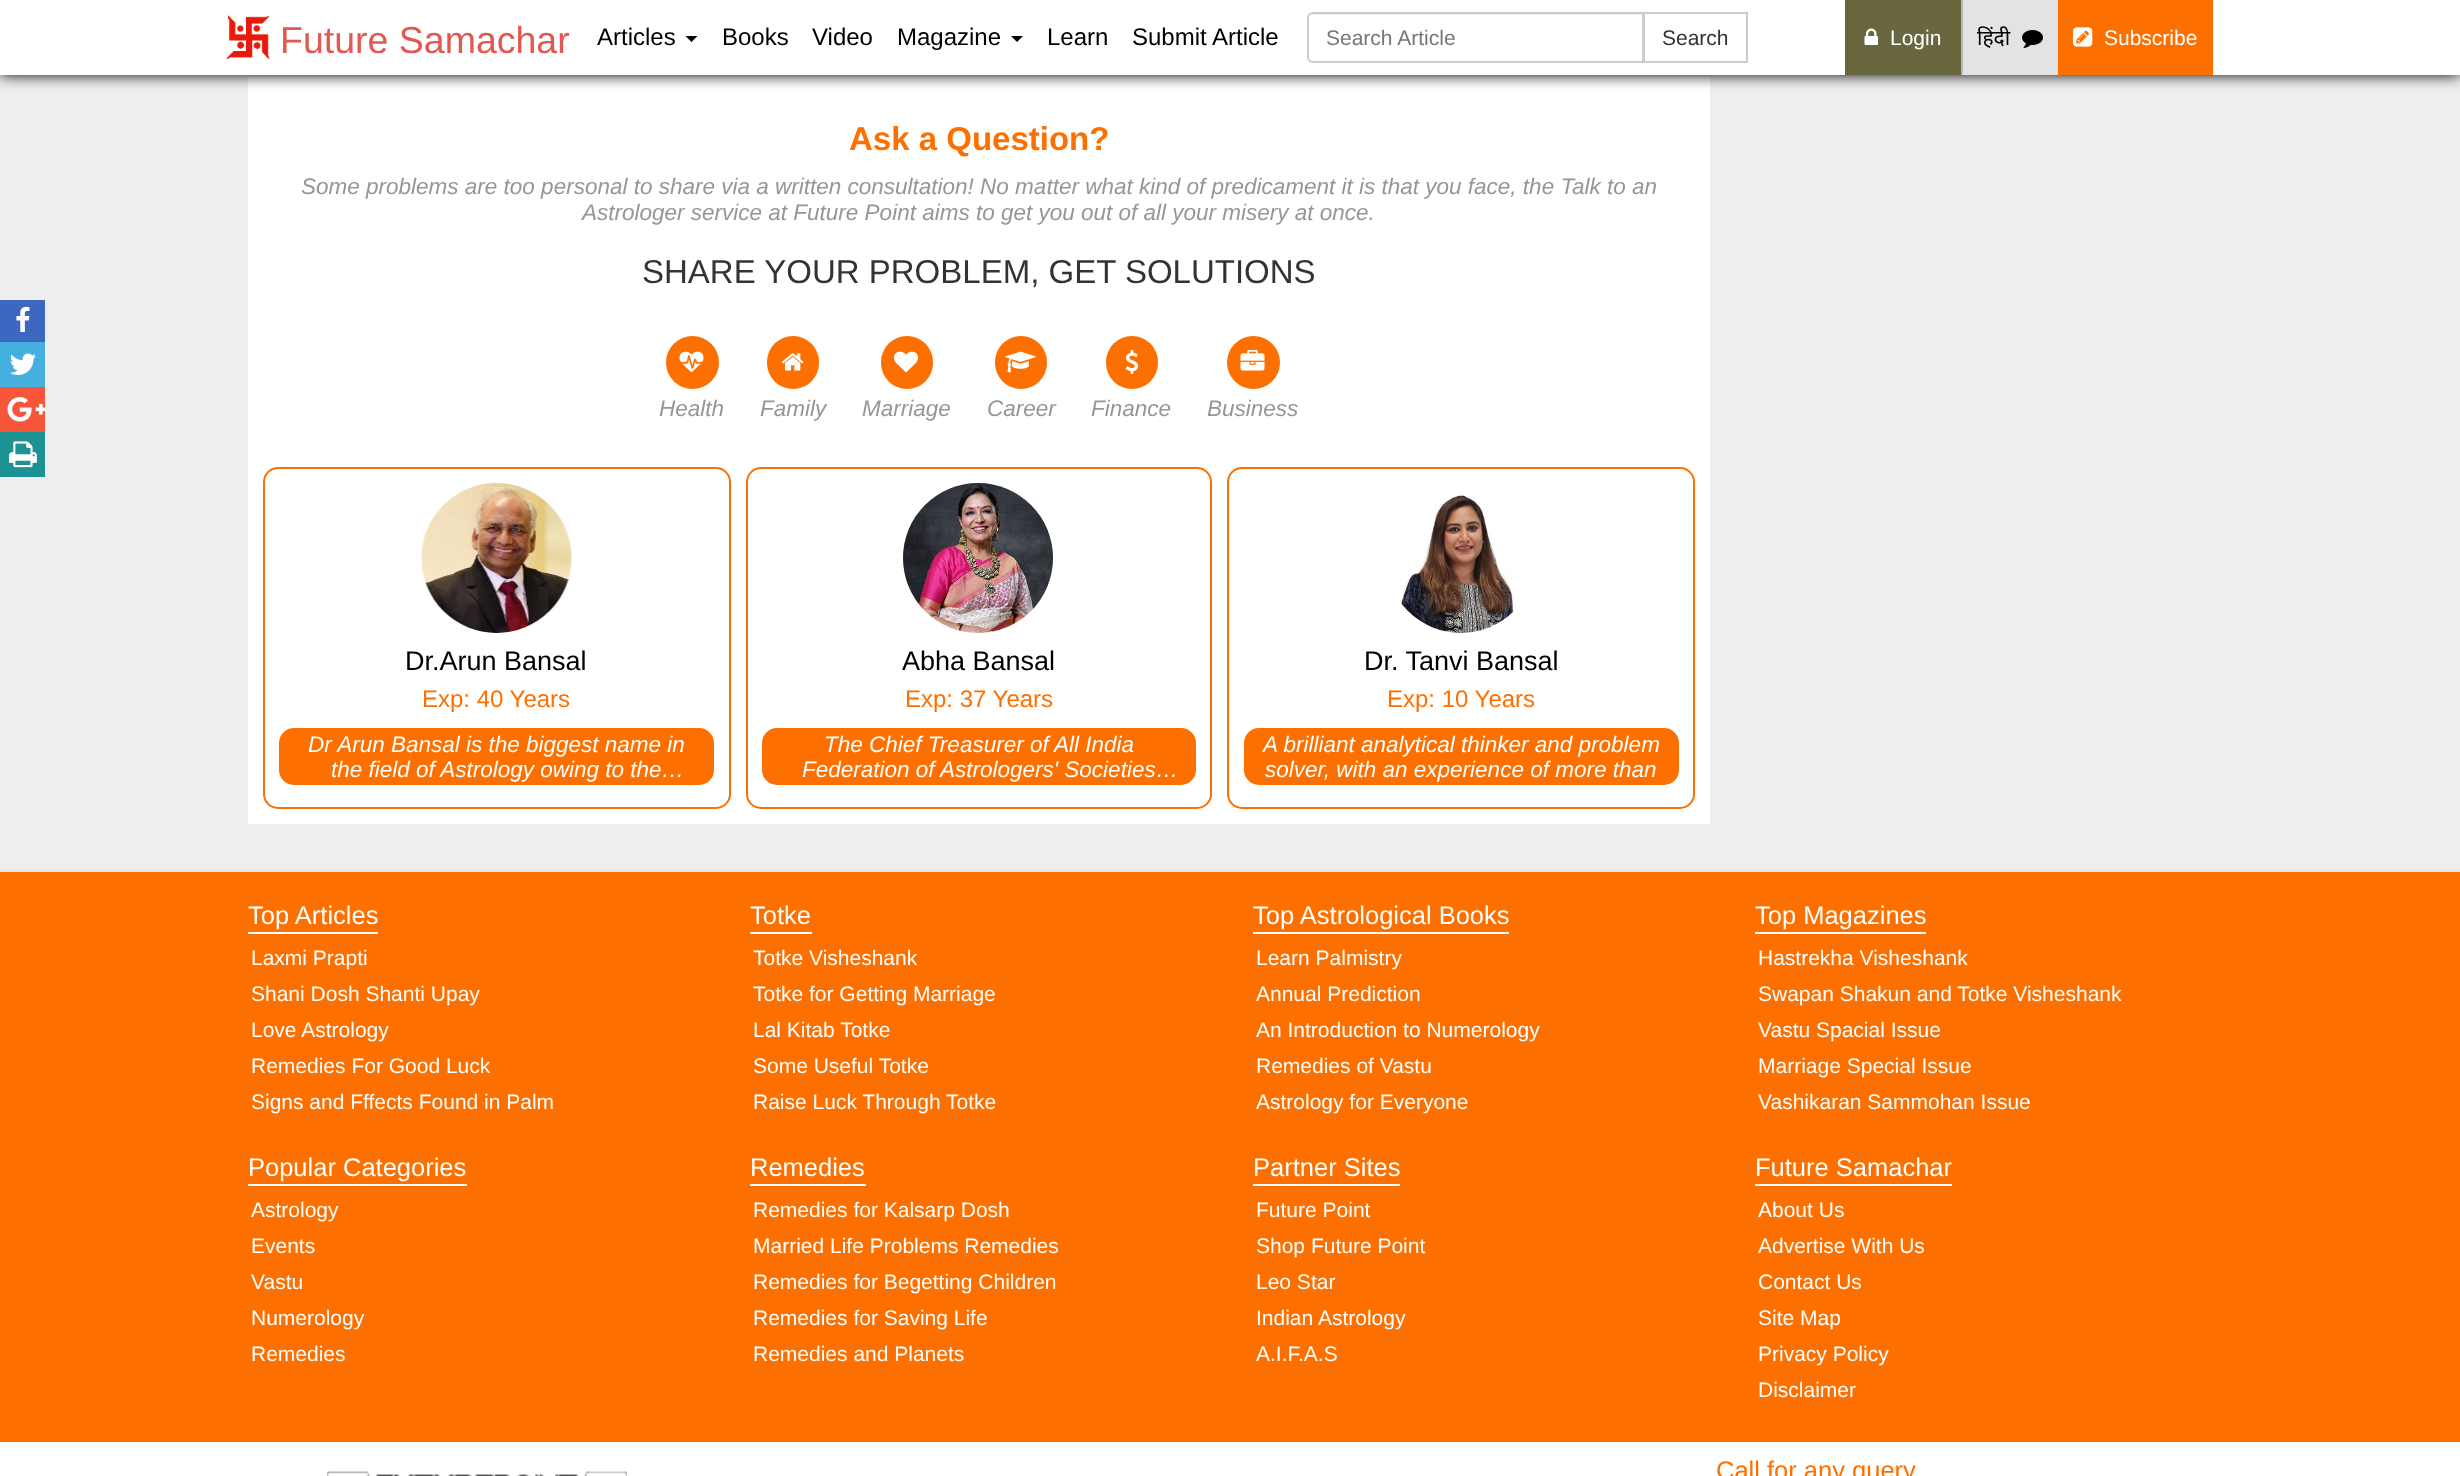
(async () => {
  const canvas = document.querySelector("canvas");
  canvas.width = 2460;
  canvas.height = 1476;
  const ctx = canvas.getContext("2d");
  ctx.miterLimit = 4;
  ctx.fontKerning = "normal";
  async function loadImage(src) {
    const img = new Image();
    img.src = src;
    await img.decode();
    return img;
  }
  let path;

  ctx.fillStyle = "#eeeeee";
  ctx.fillRect(0, 0, 2460, 1476);
  ctx.fillStyle = "#ffffff";
  ctx.fillRect(248, 77, 1462, 747);
  ctx.fillStyle = "#000000";
  ctx.filter = "blur(7.5px)";
  ctx.beginPath();
  ctx.rect(0, 0, 2460, 75);
  ctx.fill();
  ctx.filter = "none";
  ctx.fillStyle = "#ffffff";
  ctx.fillRect(0, 0, 2460, 75);
  ctx.drawImage(await loadImage("img/1.png"), 226, 15, 44, 45);
  ctx.fillStyle = "#000000";
  path = new Path2D("M685.5 36H697.5L691.5 42Z");
  ctx.fill(path);
  path = new Path2D("M1011 36H1023L1017 42Z");
  ctx.fill(path);
  ctx.strokeStyle = "#cccccc";
  ctx.lineWidth = 2;
  ctx.strokeRect(1644, 13, 103, 49);
  ctx.fillStyle = "#ffffff";
  ctx.beginPath();
  ctx.roundRect(1307, 12, 337, 51, [6, 0, 0, 6]);
  ctx.fill();
  ctx.fillStyle = "#ececec";
  path = new Path2D("M1312 15H1642V62H1643V14H1313C1310 14 1308 17 1308 20C1308 17 1310 15 1312 15Z");
  ctx.fill(path);
  ctx.beginPath();
  ctx.roundRect(1308, 13, 335, 49, [5, 0, 0, 5]);
  ctx.stroke();
  ctx.fillStyle = "#696740";
  ctx.fillRect(1845, 0, 116, 75);
  ctx.drawImage(await loadImage("img/2.png"), 1864, 28, 14, 17);
  ctx.fillStyle = "#e3e3e3";
  ctx.fillRect(1963, 0, 95, 75);
  ctx.fillStyle = "#b6b6b6";
  ctx.fillRect(1961, 0, 2, 75);
  ctx.drawImage(await loadImage("img/3.png"), 2022, 30, 21, 18);
  ctx.fillStyle = "#fd7000";
  ctx.fillRect(2058, 0, 155, 75);
  ctx.drawImage(await loadImage("img/4.png"), 2073, 27, 20, 20);
  ctx.beginPath();
  ctx.arc(692.5, 362.5, 26.5, 0, Math.PI * 2);
  ctx.fill();
  ctx.drawImage(await loadImage("img/5.png"), 679, 351, 25, 22);
  ctx.beginPath();
  ctx.roundRect(767, 336, 52, 53, 26);
  ctx.fill();
  ctx.drawImage(await loadImage("img/6.png"), 781, 353, 23, 18);
  ctx.beginPath();
  ctx.roundRect(881, 336, 52, 53, 26);
  ctx.fill();
  ctx.drawImage(await loadImage("img/7.png"), 894, 351, 24, 22);
  ctx.beginPath();
  ctx.roundRect(995, 336, 52, 53, 26);
  ctx.fill();
  ctx.drawImage(await loadImage("img/8.png"), 1005, 351, 31, 22);
  ctx.beginPath();
  ctx.roundRect(1106, 336, 52, 53, 26);
  ctx.fill();
  ctx.drawImage(await loadImage("img/9.png"), 1125, 349, 14, 25);
  ctx.beginPath();
  ctx.arc(1253.5, 362.5, 26.5, 0, Math.PI * 2);
  ctx.fill();
  ctx.drawImage(await loadImage("img/10.png"), 1240, 349, 25, 22);
  ctx.beginPath();
  ctx.roundRect(264, 468, 466, 340, 14);
  ctx.strokeStyle = "#fd7000";
  ctx.stroke();
  ctx.drawImage(await loadImage("img/11.png"), 421, 483, 151, 150);
  ctx.beginPath();
  ctx.roundRect(279, 728, 435, 57, 15);
  ctx.fill();
  ctx.beginPath();
  ctx.roundRect(747, 468, 464, 340, 14);
  ctx.stroke();
  ctx.drawImage(await loadImage("img/12.png"), 903, 483, 150, 150);
  ctx.beginPath();
  ctx.roundRect(762, 728, 434, 57, 15);
  ctx.fill();
  ctx.beginPath();
  ctx.roundRect(1228, 468, 466, 340, 14);
  ctx.stroke();
  ctx.drawImage(await loadImage("img/13.png"), 1401, 495, 113, 138);
  ctx.beginPath();
  ctx.roundRect(1244, 728, 435, 57, 15);
  ctx.fill();
  for (const [x, y, w, h, color] of [
    [0, 872, 2460, 570, "#fd7000"],
    [0, 869, 2460, 3, "#e5e5e5"],
    [0, 300, 45, 42, "#3d68bf"],
  ]) {
    ctx.fillStyle = color;
    ctx.fillRect(x, y, w, h);
  }
  ctx.drawImage(await loadImage("img/14.png"), 16, 306, 14, 26);
  ctx.fillStyle = "#45b0e0";
  ctx.fillRect(0, 342, 45, 45);
  ctx.drawImage(await loadImage("img/15.png"), 10, 353, 26, 22);
  ctx.fillStyle = "#f7563b";
  ctx.fillRect(0, 387, 45, 45);
  ctx.drawImage(await loadImage("img/16.png"), 7, 397, 39, 25);
  ctx.fillStyle = "#1d9293";
  ctx.fillRect(0, 432, 45, 45);
  ctx.drawImage(await loadImage("img/17.png"), 9, 441, 28, 27);
  for (const [x, y, w, h, color] of [
    [248, 932, 130, 2, "#ffffff"],
    [750, 932, 62, 2, "#ffffff"],
    [1253, 932, 256, 2, "#ffffff"],
    [1755, 932, 171, 2, "#ffffff"],
    [248, 1184, 219, 2, "#ffffff"],
    [750, 1184, 116, 2, "#ffffff"],
    [1253, 1184, 147, 2, "#ffffff"],
    [1755, 1184, 197, 2, "#ffffff"],
    [0, 1442, 2460, 34, "#ffffff"],
  ]) {
    ctx.fillStyle = color;
    ctx.fillRect(x, y, w, h);
  }
  ctx.drawImage(await loadImage("img/18.png"), 327, 1471, 300, 5);
  ctx.font = "37.5px Liberation Sans";
  ctx.fillStyle = "#e15850";
  ctx.fillText("Future Samachar", 280, 53);
  ctx.font = "24px Liberation Sans";
  ctx.fillStyle = "#000000";
  for (const [text, x, y] of [
    ["Articles", 597, 45],
    ["Books", 722, 45],
    ["Video", 812, 45],
    ["Magazine", 897, 45],
    ["Learn", 1047, 45],
    ["Submit Article", 1132, 45],
  ]) {
    ctx.fillText(text, x, y);
  }
  ctx.font = "21px Liberation Sans";
  ctx.fillStyle = "#777777";
  ctx.fillText("Search Article", 1326, 45);
  ctx.fillStyle = "#333333";
  ctx.fillText("Search", 1662, 45);
  ctx.fillStyle = "#ffffff";
  ctx.fillText("Login", 1890, 45);
  ctx.font = "21px Noto Sans";
  ctx.fillStyle = "#000000";
  ctx.fillText("हिंदी", 1977, 45);
  ctx.font = "21px Liberation Sans";
  ctx.fillStyle = "#ffffff";
  ctx.fillText("Subscribe", 2104, 45);
  ctx.font = "bold 33px Liberation Sans";
  ctx.fillStyle = "#fd7000";
  ctx.fillText("Ask a Question?", 849, 150);
  ctx.font = "italic 22.5px Liberation Sans";
  ctx.fillStyle = "#969696";
  ctx.fillText("Some problems are too personal to share via a written consultation! No matter what kind of predicament it is that you face, the Talk to an", 301, 194);
  ctx.fillText("Astrologer service at Future Point aims to get you out of all your misery at once.", 582, 220);
  ctx.font = "33px Liberation Sans";
  ctx.fillStyle = "#333333";
  ctx.fillText("SHARE YOUR PROBLEM, GET SOLUTIONS", 642, 283);
  ctx.font = "italic 22.5px Liberation Sans";
  ctx.fillStyle = "#969696";
  for (const [text, x, y] of [
    ["Health", 659, 416],
    ["Family", 760, 416],
    ["Marriage", 862, 416],
    ["Career", 987, 416],
    ["Finance", 1091, 416],
    ["Business", 1207, 416],
  ]) {
    ctx.fillText(text, x, y);
  }
  ctx.font = "27px Liberation Sans";
  ctx.fillStyle = "#000000";
  ctx.fillText("Dr.Arun Bansal", 405, 670);
  ctx.font = "24px Liberation Sans";
  ctx.fillStyle = "#fd7000";
  ctx.fillText("Exp: 40 Years", 422, 707);
  ctx.font = "italic 22.5px Liberation Sans";
  ctx.fillStyle = "#ffffff";
  ctx.fillText("Dr Arun Bansal is the biggest name in", 308, 752);
  ctx.fillText("the field of Astrology owing to the…", 331, 777);
  ctx.font = "27px Liberation Sans";
  ctx.fillStyle = "#000000";
  ctx.fillText("Abha Bansal", 902, 670);
  ctx.font = "24px Liberation Sans";
  ctx.fillStyle = "#fd7000";
  ctx.fillText("Exp: 37 Years", 905, 707);
  ctx.font = "italic 22.5px Liberation Sans";
  ctx.fillStyle = "#ffffff";
  ctx.fillText("The Chief Treasurer of All India", 824, 752);
  ctx.fillText("Federation of Astrologers' Societies…", 802, 777);
  ctx.font = "27px Liberation Sans";
  ctx.fillStyle = "#000000";
  ctx.fillText("Dr. Tanvi Bansal", 1364, 670);
  ctx.font = "24px Liberation Sans";
  ctx.fillStyle = "#fd7000";
  ctx.fillText("Exp: 10 Years", 1387, 707);
  ctx.font = "italic 22.5px Liberation Sans";
  ctx.fillStyle = "#ffffff";
  ctx.fillText("A brilliant analytical thinker and problem", 1263, 752);
  ctx.fillText("solver, with an experience of more than", 1265, 777);
  ctx.font = "25.5px Liberation Sans";
  ctx.fillText("Top Articles", 248, 924);
  ctx.font = "21px Liberation Sans";
  for (const [text, x, y] of [
    ["Laxmi Prapti", 251, 965],
    ["Shani Dosh Shanti Upay", 251, 1001],
    ["Love Astrology", 251, 1037],
    ["Remedies For Good Luck", 251, 1073],
    ["Signs and Fffects Found in Palm", 251, 1109],
  ]) {
    ctx.fillText(text, x, y);
  }
  ctx.font = "25.5px Liberation Sans";
  ctx.fillText("Totke", 750, 924);
  ctx.font = "21px Liberation Sans";
  for (const [text, x, y] of [
    ["Totke Visheshank", 753, 965],
    ["Totke for Getting Marriage", 753, 1001],
    ["Lal Kitab Totke", 753, 1037],
    ["Some Useful Totke", 753, 1073],
    ["Raise Luck Through Totke", 753, 1109],
  ]) {
    ctx.fillText(text, x, y);
  }
  ctx.font = "25.5px Liberation Sans";
  ctx.fillText("Top Astrological Books", 1253, 924);
  ctx.font = "21px Liberation Sans";
  for (const [text, x, y] of [
    ["Learn Palmistry", 1256, 965],
    ["Annual Prediction", 1256, 1001],
    ["An Introduction to Numerology", 1256, 1037],
    ["Remedies of Vastu", 1256, 1073],
    ["Astrology for Everyone", 1256, 1109],
  ]) {
    ctx.fillText(text, x, y);
  }
  ctx.font = "25.5px Liberation Sans";
  ctx.fillText("Top Magazines", 1755, 924);
  ctx.font = "21px Liberation Sans";
  for (const [text, x, y] of [
    ["Hastrekha Visheshank", 1758, 965],
    ["Swapan Shakun and Totke Visheshank", 1758, 1001],
    ["Vastu Spacial Issue", 1758, 1037],
    ["Marriage Special Issue", 1758, 1073],
    ["Vashikaran Sammohan Issue", 1758, 1109],
  ]) {
    ctx.fillText(text, x, y);
  }
  ctx.font = "25.5px Liberation Sans";
  ctx.fillText("Popular Categories", 248, 1176);
  ctx.font = "21px Liberation Sans";
  for (const [text, x, y] of [
    ["Astrology", 251, 1217],
    ["Events", 251, 1253],
    ["Vastu", 251, 1289],
    ["Numerology", 251, 1325],
    ["Remedies", 251, 1361],
  ]) {
    ctx.fillText(text, x, y);
  }
  ctx.font = "25.5px Liberation Sans";
  ctx.fillText("Remedies", 750, 1176);
  ctx.font = "21px Liberation Sans";
  for (const [text, x, y] of [
    ["Remedies for Kalsarp Dosh", 753, 1217],
    ["Married Life Problems Remedies", 753, 1253],
    ["Remedies for Begetting Children", 753, 1289],
    ["Remedies for Saving Life", 753, 1325],
    ["Remedies and Planets", 753, 1361],
  ]) {
    ctx.fillText(text, x, y);
  }
  ctx.font = "25.5px Liberation Sans";
  ctx.fillText("Partner Sites", 1253, 1176);
  ctx.font = "21px Liberation Sans";
  for (const [text, x, y] of [
    ["Future Point", 1256, 1217],
    ["Shop Future Point", 1256, 1253],
    ["Leo Star", 1256, 1289],
    ["Indian Astrology", 1256, 1325],
    ["A.I.F.A.S", 1256, 1361],
  ]) {
    ctx.fillText(text, x, y);
  }
  ctx.font = "25.5px Liberation Sans";
  ctx.fillText("Future Samachar", 1755, 1176);
  ctx.font = "21px Liberation Sans";
  for (const [text, x, y] of [
    ["About Us", 1758, 1217],
    ["Advertise With Us", 1758, 1253],
    ["Contact Us", 1758, 1289],
    ["Site Map", 1758, 1325],
    ["Privacy Policy", 1758, 1361],
    ["Disclaimer", 1758, 1397],
  ]) {
    ctx.fillText(text, x, y);
  }
  ctx.font = "25.5px Liberation Sans";
  ctx.fillStyle = "#fd7000";
  ctx.fillText("Call for any query", 1716, 1479);
})();
